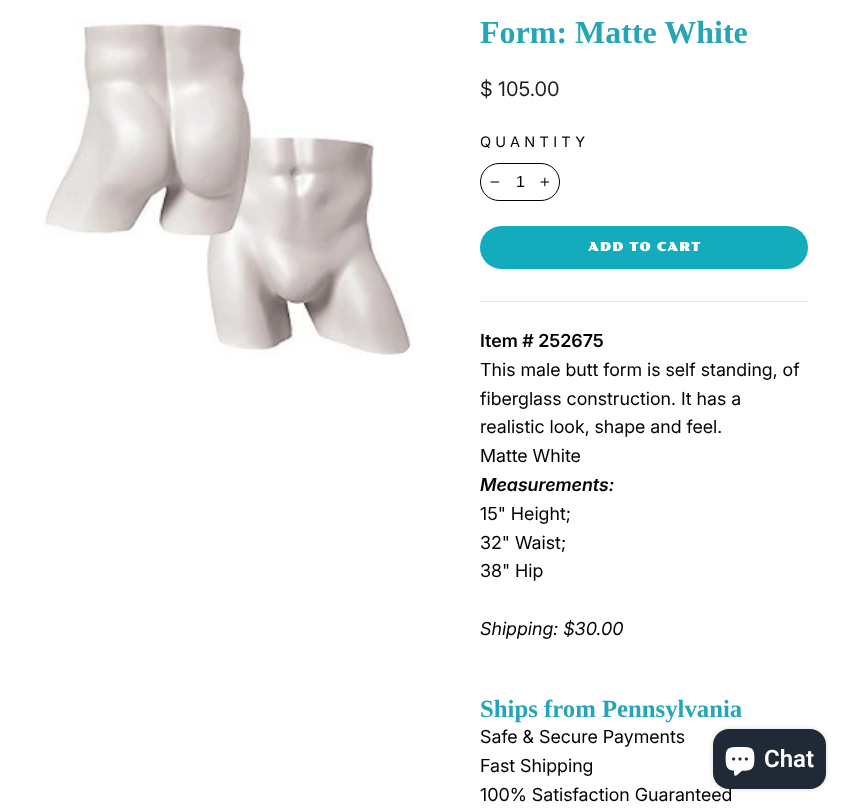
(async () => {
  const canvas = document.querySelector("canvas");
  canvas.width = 848;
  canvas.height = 810;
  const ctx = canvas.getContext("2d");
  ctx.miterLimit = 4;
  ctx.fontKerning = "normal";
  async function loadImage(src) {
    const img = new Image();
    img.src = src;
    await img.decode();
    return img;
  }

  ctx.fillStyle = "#ffffff";
  ctx.fillRect(0, 0, 848, 810);
  ctx.drawImage(await loadImage("img/1.png"), 41, 20, 372, 335);
  ctx.beginPath();
  ctx.roundRect(480.5, 163.5, 79, 37, 18.5);
  ctx.strokeStyle = "#000000";
  ctx.stroke();
  ctx.drawImage(await loadImage("img/2.png"), 490, 181, 10, 2);
  ctx.drawImage(await loadImage("img/3.png"), 540, 177, 10, 10);
  ctx.fillStyle = "#12acbd";
  ctx.beginPath();
  ctx.roundRect(480, 226, 328, 43, 21.5);
  ctx.fill();
  ctx.fillStyle = "#e8e8e1";
  ctx.fillRect(480, 301, 328, 1);
  ctx.fillStyle = "rgba(0, 0, 0, 0.15)";
  ctx.filter = "blur(2.5px)";
  ctx.beginPath();
  ctx.roundRect(713, 729, 113, 60, 16);
  ctx.fill();
  ctx.filter = "none";
  ctx.font = "bold 32px Liberation Serif";
  ctx.fillStyle = "#26a5b7";
  ctx.fillText("Form: Matte White", 480, 43);
  ctx.font = "20px Inter";
  ctx.fillStyle = "#1c1d1d";
  ctx.fillText("$ 105.00", 480, 96);
  ctx.letterSpacing = "4.25px";
  ctx.font = "14.5px 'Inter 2'";
  ctx.fillStyle = "#000000";
  ctx.fillText("QUANTITY", 480, 147);
  ctx.letterSpacing = "0px";
  ctx.font = "16px Liberation Sans";
  ctx.fillText("1", 516, 187);
  ctx.letterSpacing = "1.25px";
  ctx.font = "bold 12px Poller One";
  ctx.fillStyle = "#ffffff";
  ctx.fillText("ADD TO CART", 588, 251);
  ctx.letterSpacing = "0px";
  ctx.font = "600 18px Inter";
  ctx.fillStyle = "#000000";
  ctx.fillText("Item # 252675", 480, 347);
  ctx.font = "18px 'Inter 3'";
  for (const [text, x, y] of [
    ["This male butt form is self standing, of", 480, 376],
    ["fiberglass construction. It has a", 480, 405],
    ["realistic look, shape and feel.", 480, 433],
    ["Matte White", 480, 462],
  ]) {
    ctx.fillText(text, x, y);
  }
  ctx.font = "italic 600 18px Inter";
  ctx.fillText("Measurements:", 480, 491);
  ctx.font = "18px 'Inter 3'";
  for (const [text, x, y] of [
    ["15\" Height;", 480, 520],
    ["32\" Waist;", 480, 549],
    ["38\" Hip", 480, 577],
  ]) {
    ctx.fillText(text, x, y);
  }
  ctx.font = "italic 18px Inter";
  ctx.fillText("Shipping: $30.00", 480, 635);
  ctx.font = "bold 24.75px Liberation Serif";
  ctx.fillStyle = "#26a5b7";
  ctx.fillText("Ships from Pennsylvania", 480, 717);
  ctx.font = "18px 'Inter 3'";
  ctx.fillStyle = "#000000";
  for (const [text, x, y] of [
    ["Safe & Secure Payments", 480, 743],
    ["Fast Shipping", 480, 772],
    ["100% Satisfaction Guaranteed", 480, 801],
  ]) {
    ctx.fillText(text, x, y);
  }
  ctx.fillStyle = "#202a36";
  ctx.beginPath();
  ctx.roundRect(713, 729, 113, 60, 16);
  ctx.fill();
  ctx.drawImage(await loadImage("img/4.png"), 725, 747, 30, 29);
  ctx.font = "600 24px Roboto";
  ctx.fillStyle = "#ffffff";
  ctx.fillText("Chat", 764, 767);
})();
